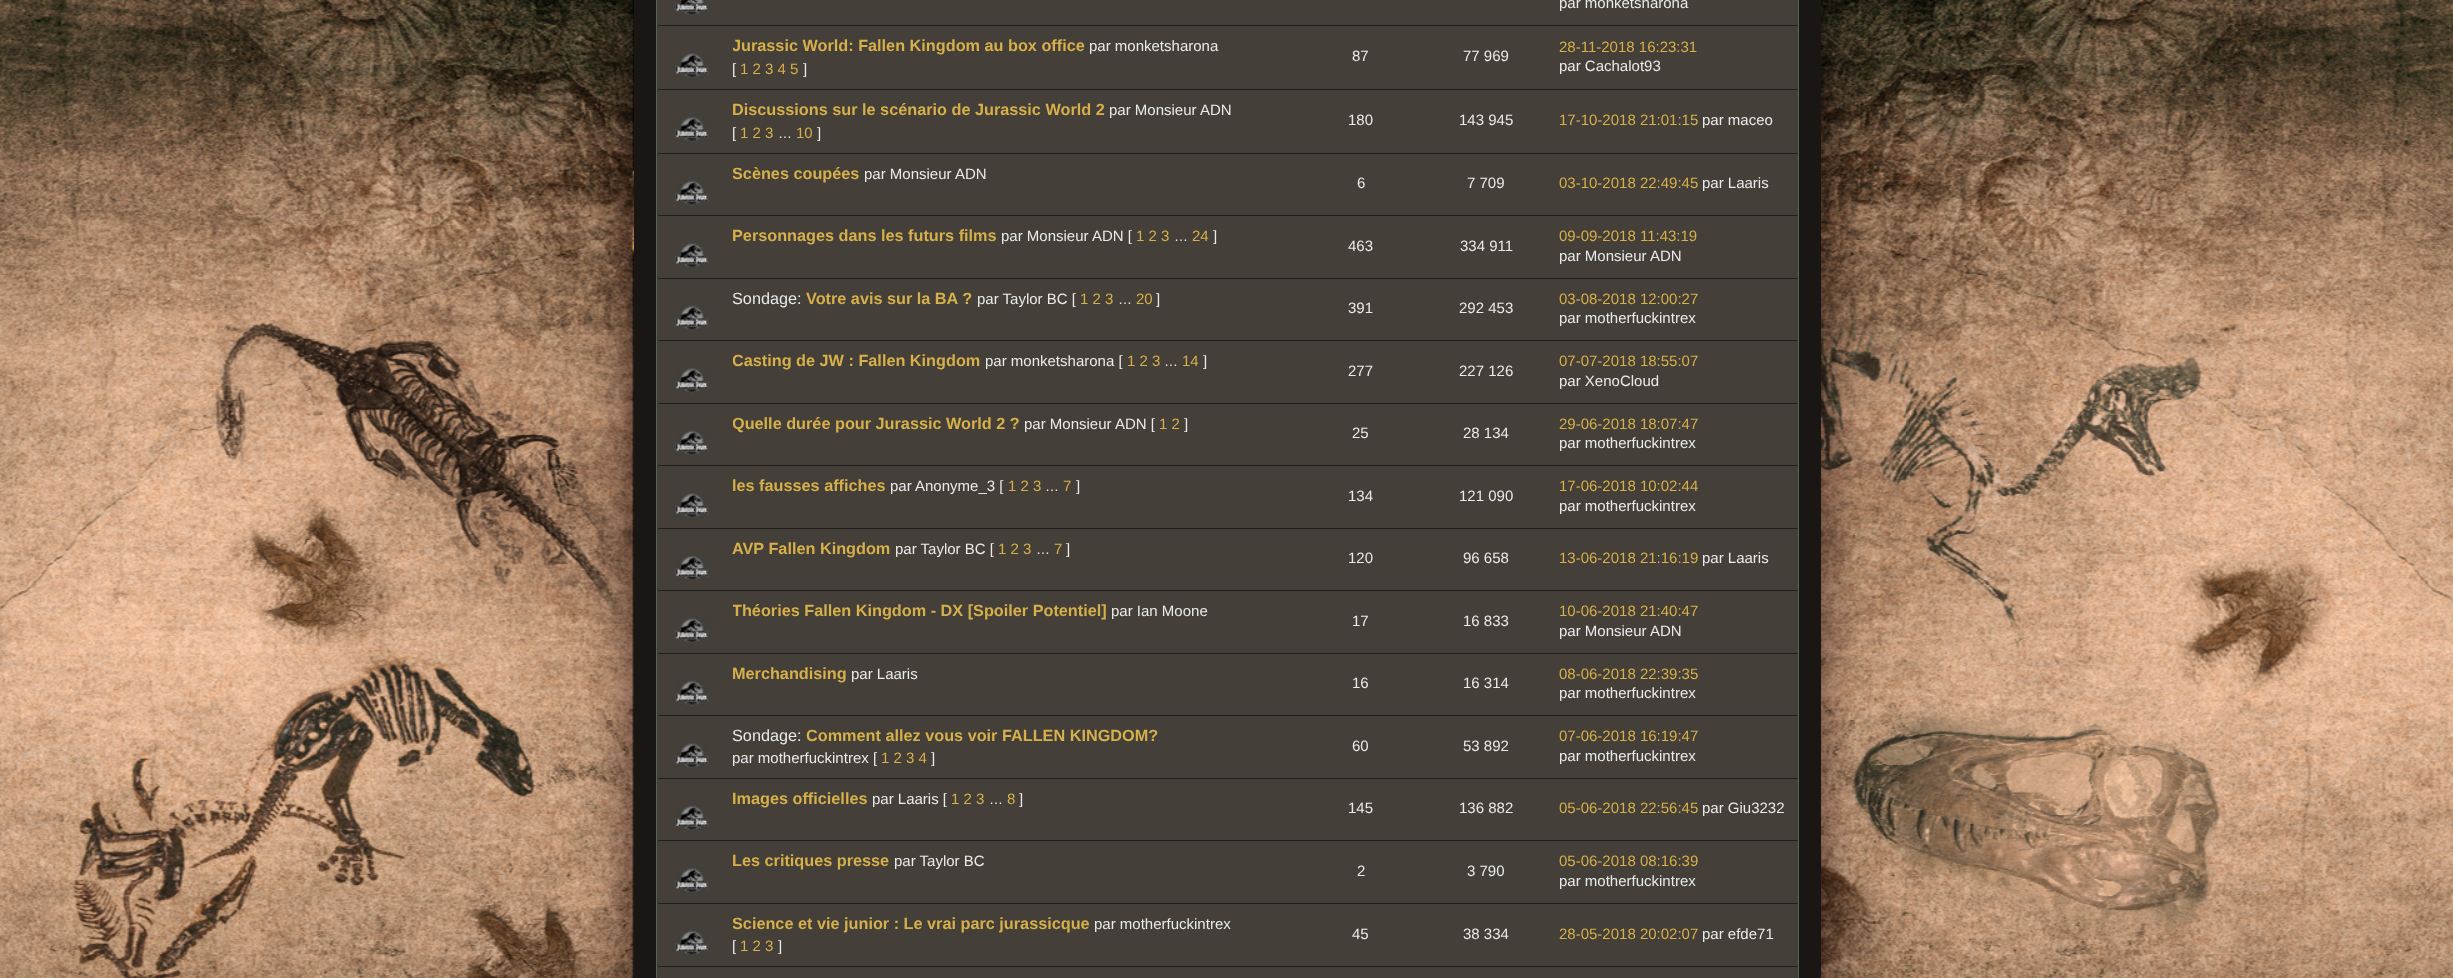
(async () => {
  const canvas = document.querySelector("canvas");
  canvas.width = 2453;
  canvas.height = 978;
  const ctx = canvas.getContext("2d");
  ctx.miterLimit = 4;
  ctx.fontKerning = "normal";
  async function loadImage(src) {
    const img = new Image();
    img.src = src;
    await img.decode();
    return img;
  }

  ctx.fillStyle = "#ffffff";
  ctx.fillRect(0, 0, 2453, 978);
  ctx.drawImage(await loadImage("img/1.png"), 0, 0, 2453, 978);
  ctx.drawImage(await loadImage("img/2.png"), 584, 0, 1287, 978);
  ctx.fillStyle = "#1a1613";
  ctx.fillRect(634, 0, 1187, 978);
  ctx.fillStyle = "#443f39";
  ctx.beginPath();
  ctx.rect(656.5, -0.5, 1142, 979);
  ctx.fill();
  ctx.strokeStyle = "#526550";
  ctx.stroke();
  ctx.drawImage(await loadImage("img/3.png"), 675, 0, 34, 16);
  ctx.fillStyle = "#211f1d";
  ctx.fillRect(658, 25, 1140, 1);
  ctx.drawImage(await loadImage("img/4.png"), 675, 53, 34, 25);
  ctx.fillRect(658, 89, 1140, 1);
  ctx.drawImage(await loadImage("img/5.png"), 675, 117, 34, 25);
  ctx.fillRect(658, 153, 1140, 1);
  ctx.drawImage(await loadImage("img/6.png"), 675, 180, 34, 26);
  ctx.fillRect(658, 215, 1140, 1);
  ctx.drawImage(await loadImage("img/4.png"), 675, 243, 34, 25);
  ctx.fillRect(658, 278, 1140, 1);
  ctx.drawImage(await loadImage("img/6.png"), 675, 305, 34, 26);
  ctx.fillRect(658, 340, 1140, 1);
  ctx.drawImage(await loadImage("img/4.png"), 675, 368, 34, 25);
  ctx.fillRect(658, 403, 1140, 1);
  ctx.drawImage(await loadImage("img/6.png"), 675, 430, 34, 26);
  ctx.fillRect(658, 465, 1140, 1);
  ctx.drawImage(await loadImage("img/4.png"), 675, 493, 34, 25);
  ctx.fillRect(658, 528, 1140, 1);
  ctx.drawImage(await loadImage("img/6.png"), 675, 555, 34, 26);
  ctx.fillRect(658, 590, 1140, 1);
  ctx.drawImage(await loadImage("img/4.png"), 675, 618, 34, 25);
  ctx.fillRect(658, 653, 1140, 1);
  ctx.drawImage(await loadImage("img/6.png"), 675, 680, 34, 26);
  ctx.fillRect(658, 715, 1140, 1);
  ctx.drawImage(await loadImage("img/4.png"), 675, 743, 34, 25);
  ctx.fillRect(658, 778, 1140, 1);
  ctx.drawImage(await loadImage("img/6.png"), 675, 805, 34, 26);
  ctx.fillRect(658, 840, 1140, 1);
  ctx.drawImage(await loadImage("img/4.png"), 675, 868, 34, 25);
  ctx.fillRect(658, 903, 1140, 1);
  ctx.drawImage(await loadImage("img/6.png"), 675, 930, 34, 26);
  ctx.fillRect(658, 966, 1140, 1);
  ctx.font = "15px Liberation Sans";
  ctx.fillStyle = "#eaeaea";
  ctx.fillText("par monketsharona", 1559, 8);
  ctx.save();
  ctx.beginPath();
  ctx.rect(733, 35, 541, 45);
  ctx.clip();
  ctx.font = "bold 16.25px Liberation Sans";
  ctx.fillStyle = "#d6b04a";
  ctx.fillText("Jurassic World: Fallen Kingdom au box office", 732, 51);
  ctx.restore();
  ctx.fillText("par monketsharona", 1089, 51);
  ctx.fillText("[", 732, 74);
  ctx.fillStyle = "#d6b04a";
  ctx.fillText("1 2 3 4 5", 740, 74);
  ctx.fillStyle = "#eaeaea";
  for (const [text, x, y] of [
    ["]", 803, 74],
    ["87", 1352, 61],
    ["77 969", 1463, 61],
  ]) {
    ctx.fillText(text, x, y);
  }
  ctx.fillStyle = "#d6b04a";
  ctx.fillText("28-11-2018 16:23:31", 1559, 52);
  ctx.fillStyle = "#eaeaea";
  ctx.fillText("par Cachalot93", 1559, 71);
  ctx.font = "bold 16.25px Liberation Sans";
  ctx.fillStyle = "#d6b04a";
  ctx.fillText("Discussions sur le scénario de Jurassic World 2", 732, 115);
  ctx.font = "15px Liberation Sans";
  ctx.fillStyle = "#eaeaea";
  ctx.fillText("par Monsieur ADN", 1109, 115);
  ctx.fillText("[", 732, 138);
  ctx.fillStyle = "#d6b04a";
  ctx.fillText("1 2 3", 740, 138);
  ctx.font = "14px Liberation Sans";
  ctx.fillStyle = "#eaeaea";
  ctx.fillText("…", 778, 138);
  ctx.font = "15px Liberation Sans";
  ctx.fillStyle = "#d6b04a";
  ctx.fillText("10", 796, 138);
  ctx.fillStyle = "#eaeaea";
  for (const [text, x, y] of [
    ["]", 817, 138],
    ["180", 1348, 125],
    ["143 945", 1459, 125],
  ]) {
    ctx.fillText(text, x, y);
  }
  ctx.fillStyle = "#d6b04a";
  ctx.fillText("17-10-2018 21:01:15", 1559, 125);
  ctx.fillStyle = "#eaeaea";
  ctx.fillText("par maceo", 1702, 125);
  ctx.save();
  ctx.beginPath();
  ctx.rect(733, 163, 541, 22);
  ctx.clip();
  ctx.font = "bold 16.25px Liberation Sans";
  ctx.fillStyle = "#d6b04a";
  ctx.fillText("Scènes coupées", 732, 179);
  ctx.restore();
  for (const [text, x, y] of [
    ["par Monsieur ADN", 864, 179],
    ["6", 1357, 188],
    ["7 709", 1467, 188],
  ]) {
    ctx.fillText(text, x, y);
  }
  ctx.fillStyle = "#d6b04a";
  ctx.fillText("03-10-2018 22:49:45", 1559, 188);
  ctx.fillStyle = "#eaeaea";
  ctx.fillText("par Laaris", 1702, 188);
  ctx.font = "bold 16.25px Liberation Sans";
  ctx.fillStyle = "#d6b04a";
  ctx.fillText("Personnages dans les futurs films", 732, 241);
  ctx.font = "15px Liberation Sans";
  ctx.fillStyle = "#eaeaea";
  ctx.fillText("par Monsieur ADN [", 1001, 241);
  ctx.fillStyle = "#d6b04a";
  ctx.fillText("1 2 3", 1136, 241);
  ctx.font = "14px Liberation Sans";
  ctx.fillStyle = "#eaeaea";
  ctx.fillText("…", 1174, 241);
  ctx.font = "15px Liberation Sans";
  ctx.fillStyle = "#d6b04a";
  ctx.fillText("24", 1192, 241);
  ctx.fillStyle = "#eaeaea";
  for (const [text, x, y] of [
    ["]", 1213, 241],
    ["463", 1348, 251],
    ["334 911", 1460, 251],
  ]) {
    ctx.fillText(text, x, y);
  }
  ctx.fillStyle = "#d6b04a";
  ctx.fillText("09-09-2018 11:43:19", 1559, 241);
  ctx.fillStyle = "#eaeaea";
  ctx.fillText("par Monsieur ADN", 1559, 261);
  ctx.font = "16.25px Liberation Sans";
  ctx.fillText("Sondage:", 732, 304);
  ctx.font = "bold 16.25px Liberation Sans";
  ctx.fillStyle = "#d6b04a";
  ctx.fillText("Votre avis sur la BA ?", 806, 304);
  ctx.font = "15px Liberation Sans";
  ctx.fillStyle = "#eaeaea";
  ctx.fillText("par Taylor BC [", 977, 304);
  ctx.fillStyle = "#d6b04a";
  ctx.fillText("1 2 3", 1080, 304);
  ctx.font = "14px Liberation Sans";
  ctx.fillStyle = "#eaeaea";
  ctx.fillText("…", 1118, 304);
  ctx.font = "15px Liberation Sans";
  ctx.fillStyle = "#d6b04a";
  ctx.fillText("20", 1136, 304);
  ctx.fillStyle = "#eaeaea";
  for (const [text, x, y] of [
    ["]", 1156, 304],
    ["391", 1348, 313],
    ["292 453", 1459, 313],
  ]) {
    ctx.fillText(text, x, y);
  }
  ctx.fillStyle = "#d6b04a";
  ctx.fillText("03-08-2018 12:00:27", 1559, 304);
  ctx.fillStyle = "#eaeaea";
  ctx.fillText("par motherfuckintrex", 1559, 323);
  ctx.save();
  ctx.beginPath();
  ctx.rect(733, 350, 541, 23);
  ctx.clip();
  ctx.font = "bold 16.25px Liberation Sans";
  ctx.fillStyle = "#d6b04a";
  ctx.fillText("Casting de JW : Fallen Kingdom", 732, 366);
  ctx.restore();
  ctx.fillText("par monketsharona [", 985, 366);
  ctx.fillStyle = "#d6b04a";
  ctx.fillText("1 2 3", 1127, 366);
  ctx.font = "14px Liberation Sans";
  ctx.fillStyle = "#eaeaea";
  ctx.fillText("…", 1164, 366);
  ctx.font = "15px Liberation Sans";
  ctx.fillStyle = "#d6b04a";
  ctx.fillText("14", 1182, 366);
  ctx.fillStyle = "#eaeaea";
  for (const [text, x, y] of [
    ["]", 1203, 366],
    ["277", 1348, 376],
    ["227 126", 1459, 376],
  ]) {
    ctx.fillText(text, x, y);
  }
  ctx.fillStyle = "#d6b04a";
  ctx.fillText("07-07-2018 18:55:07", 1559, 366);
  ctx.fillStyle = "#eaeaea";
  ctx.fillText("par XenoCloud", 1559, 386);
  ctx.save();
  ctx.beginPath();
  ctx.rect(733, 413, 541, 22);
  ctx.clip();
  ctx.font = "bold 16.25px Liberation Sans";
  ctx.fillStyle = "#d6b04a";
  ctx.fillText("Quelle durée pour Jurassic World 2 ?", 732, 429);
  ctx.restore();
  ctx.fillText("par Monsieur ADN [", 1024, 429);
  ctx.fillStyle = "#d6b04a";
  ctx.fillText("1 2", 1159, 429);
  ctx.fillStyle = "#eaeaea";
  for (const [text, x, y] of [
    ["]", 1184, 429],
    ["25", 1352, 438],
    ["28 134", 1463, 438],
  ]) {
    ctx.fillText(text, x, y);
  }
  ctx.fillStyle = "#d6b04a";
  ctx.fillText("29-06-2018 18:07:47", 1559, 429);
  ctx.fillStyle = "#eaeaea";
  ctx.fillText("par motherfuckintrex", 1559, 448);
  ctx.font = "bold 16.25px Liberation Sans";
  ctx.fillStyle = "#d6b04a";
  ctx.fillText("les fausses affiches", 732, 491);
  ctx.font = "15px Liberation Sans";
  ctx.fillStyle = "#eaeaea";
  ctx.fillText("par Anonyme_3 [", 890, 491);
  ctx.fillStyle = "#d6b04a";
  ctx.fillText("1 2 3", 1008, 491);
  ctx.font = "14px Liberation Sans";
  ctx.fillStyle = "#eaeaea";
  ctx.fillText("…", 1045, 491);
  ctx.font = "15px Liberation Sans";
  ctx.fillStyle = "#d6b04a";
  ctx.fillText("7", 1063, 491);
  ctx.fillStyle = "#eaeaea";
  for (const [text, x, y] of [
    ["]", 1076, 491],
    ["134", 1348, 501],
    ["121 090", 1459, 501],
  ]) {
    ctx.fillText(text, x, y);
  }
  ctx.fillStyle = "#d6b04a";
  ctx.fillText("17-06-2018 10:02:44", 1559, 491);
  ctx.fillStyle = "#eaeaea";
  ctx.fillText("par motherfuckintrex", 1559, 511);
  ctx.font = "bold 16.25px Liberation Sans";
  ctx.fillStyle = "#d6b04a";
  ctx.fillText("AVP Fallen Kingdom", 732, 554);
  ctx.font = "15px Liberation Sans";
  ctx.fillStyle = "#eaeaea";
  ctx.fillText("par Taylor BC [", 895, 554);
  ctx.fillStyle = "#d6b04a";
  ctx.fillText("1 2 3", 998, 554);
  ctx.font = "14px Liberation Sans";
  ctx.fillStyle = "#eaeaea";
  ctx.fillText("…", 1036, 554);
  ctx.font = "15px Liberation Sans";
  ctx.fillStyle = "#d6b04a";
  ctx.fillText("7", 1054, 554);
  ctx.fillStyle = "#eaeaea";
  for (const [text, x, y] of [
    ["]", 1066, 554],
    ["120", 1348, 563],
    ["96 658", 1463, 563],
  ]) {
    ctx.fillText(text, x, y);
  }
  ctx.fillStyle = "#d6b04a";
  ctx.fillText("13-06-2018 21:16:19", 1559, 563);
  ctx.fillStyle = "#eaeaea";
  ctx.fillText("par Laaris", 1702, 563);
  ctx.save();
  ctx.beginPath();
  ctx.rect(733, 600, 541, 23);
  ctx.clip();
  ctx.font = "bold 16.25px Liberation Sans";
  ctx.fillStyle = "#d6b04a";
  ctx.fillText("Théories Fallen Kingdom - DX [Spoiler Potentiel]", 732, 616);
  ctx.restore();
  for (const [text, x, y] of [
    ["par Ian Moone", 1111, 616],
    ["17", 1352, 626],
    ["16 833", 1463, 626],
  ]) {
    ctx.fillText(text, x, y);
  }
  ctx.fillStyle = "#d6b04a";
  ctx.fillText("10-06-2018 21:40:47", 1559, 616);
  ctx.fillStyle = "#eaeaea";
  ctx.fillText("par Monsieur ADN", 1559, 636);
  ctx.font = "bold 16.25px Liberation Sans";
  ctx.fillStyle = "#d6b04a";
  ctx.fillText("Merchandising", 732, 679);
  ctx.font = "15px Liberation Sans";
  ctx.fillStyle = "#eaeaea";
  for (const [text, x, y] of [
    ["par Laaris", 851, 679],
    ["16", 1352, 688],
    ["16 314", 1463, 688],
  ]) {
    ctx.fillText(text, x, y);
  }
  ctx.fillStyle = "#d6b04a";
  ctx.fillText("08-06-2018 22:39:35", 1559, 679);
  ctx.fillStyle = "#eaeaea";
  ctx.fillText("par motherfuckintrex", 1559, 698);
  ctx.font = "16.25px Liberation Sans";
  ctx.fillText("Sondage:", 732, 741);
  ctx.font = "bold 16.25px Liberation Sans";
  ctx.fillStyle = "#d6b04a";
  ctx.fillText("Comment allez vous voir FALLEN KINGDOM?", 806, 741);
  ctx.save();
  ctx.beginPath();
  ctx.rect(733, 725, 541, 44);
  ctx.clip();
  ctx.font = "15px Liberation Sans";
  ctx.fillStyle = "#eaeaea";
  ctx.fillText("par motherfuckintrex", 732, 763);
  ctx.restore();
  ctx.font = "15px Liberation Sans";
  ctx.fillStyle = "#eaeaea";
  ctx.fillText("[", 873, 763);
  ctx.fillStyle = "#d6b04a";
  ctx.fillText("1 2 3 4", 881, 763);
  ctx.fillStyle = "#eaeaea";
  for (const [text, x, y] of [
    ["]", 931, 763],
    ["60", 1352, 751],
    ["53 892", 1463, 751],
  ]) {
    ctx.fillText(text, x, y);
  }
  ctx.fillStyle = "#d6b04a";
  ctx.fillText("07-06-2018 16:19:47", 1559, 741);
  ctx.fillStyle = "#eaeaea";
  ctx.fillText("par motherfuckintrex", 1559, 761);
  ctx.font = "bold 16.25px Liberation Sans";
  ctx.fillStyle = "#d6b04a";
  ctx.fillText("Images officielles", 732, 804);
  ctx.font = "15px Liberation Sans";
  ctx.fillStyle = "#eaeaea";
  ctx.fillText("par Laaris [", 872, 804);
  ctx.fillStyle = "#d6b04a";
  ctx.fillText("1 2 3", 951, 804);
  ctx.font = "14px Liberation Sans";
  ctx.fillStyle = "#eaeaea";
  ctx.fillText("…", 989, 804);
  ctx.font = "15px Liberation Sans";
  ctx.fillStyle = "#d6b04a";
  ctx.fillText("8", 1007, 804);
  ctx.fillStyle = "#eaeaea";
  for (const [text, x, y] of [
    ["]", 1019, 804],
    ["145", 1348, 813],
    ["136 882", 1459, 813],
  ]) {
    ctx.fillText(text, x, y);
  }
  ctx.fillStyle = "#d6b04a";
  ctx.fillText("05-06-2018 22:56:45", 1559, 813);
  ctx.fillStyle = "#eaeaea";
  ctx.fillText("par Giu3232", 1702, 813);
  ctx.font = "bold 16.25px Liberation Sans";
  ctx.fillStyle = "#d6b04a";
  ctx.fillText("Les critiques presse", 732, 866);
  ctx.font = "15px Liberation Sans";
  ctx.fillStyle = "#eaeaea";
  for (const [text, x, y] of [
    ["par Taylor BC", 894, 866],
    ["2", 1357, 876],
    ["3 790", 1467, 876],
  ]) {
    ctx.fillText(text, x, y);
  }
  ctx.fillStyle = "#d6b04a";
  ctx.fillText("05-06-2018 08:16:39", 1559, 866);
  ctx.fillStyle = "#eaeaea";
  ctx.fillText("par motherfuckintrex", 1559, 886);
  ctx.save();
  ctx.beginPath();
  ctx.rect(733, 913, 541, 45);
  ctx.clip();
  ctx.font = "bold 16.25px Liberation Sans";
  ctx.fillStyle = "#d6b04a";
  ctx.fillText("Science et vie junior : Le vrai parc jurassicque", 732, 929);
  ctx.restore();
  ctx.fillText("par motherfuckintrex", 1094, 929);
  ctx.fillText("[", 732, 951);
  ctx.fillStyle = "#d6b04a";
  ctx.fillText("1 2 3", 740, 951);
  ctx.fillStyle = "#eaeaea";
  for (const [text, x, y] of [
    ["]", 778, 951],
    ["45", 1352, 939],
    ["38 334", 1463, 939],
  ]) {
    ctx.fillText(text, x, y);
  }
  ctx.fillStyle = "#d6b04a";
  ctx.fillText("28-05-2018 20:02:07", 1559, 939);
  ctx.fillStyle = "#eaeaea";
  ctx.fillText("par efde71", 1702, 939);
})();
